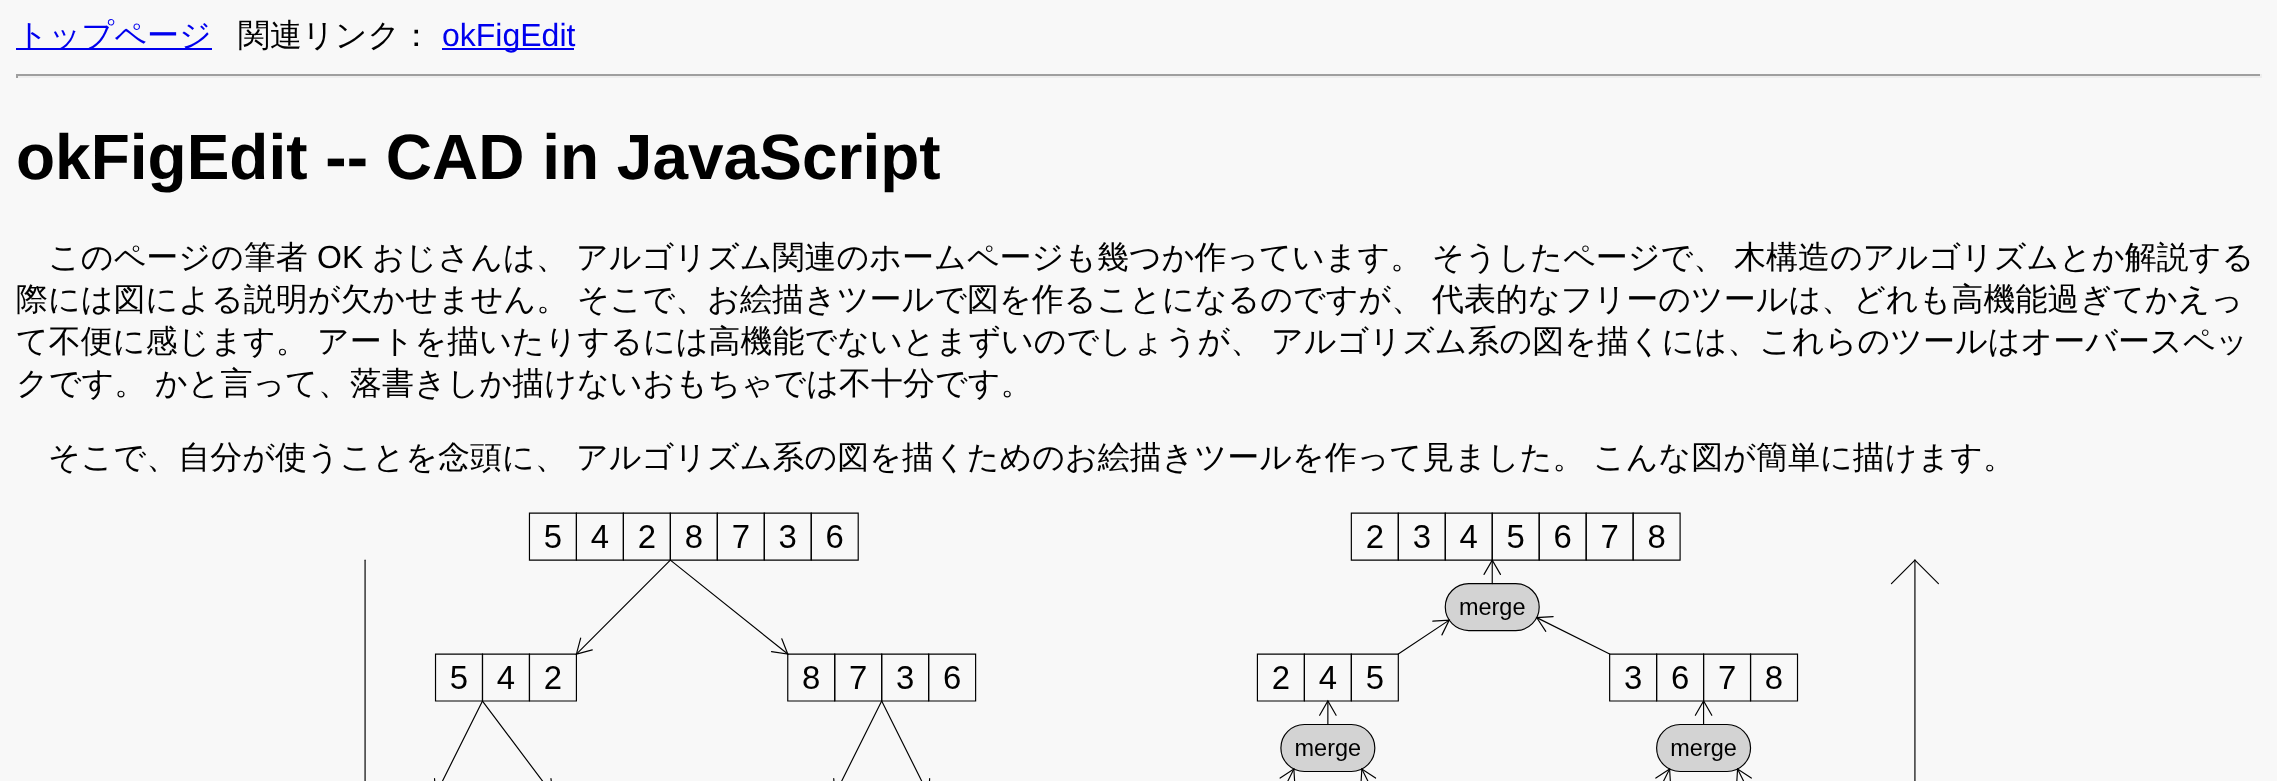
(async () => {
  const canvas = document.querySelector("canvas");
  canvas.width = 2277;
  canvas.height = 781;
  const ctx = canvas.getContext("2d");
  ctx.miterLimit = 4;
  ctx.fontKerning = "normal";
  async function loadImage(src) {
    const img = new Image();
    img.src = src;
    await img.decode();
    return img;
  }

  ctx.fillStyle = "#f8f8f8";
  ctx.fillRect(0, 0, 2277, 781);
  for (const [x, y, w, h, color] of [
    [16, 48, 196, 2, "#0000ee"],
    [442, 48, 132, 2, "#0000ee"],
    [16, 74, 2246, 2, "#9f9f9f"],
    [2260, 74, 2, 4, "#eeeeee"],
    [16, 76, 2246, 2, "#eeeeee"],
    [16, 74, 2, 4, "#9f9f9f"],
  ]) {
    ctx.fillStyle = color;
    ctx.fillRect(x, y, w, h);
  }
  ctx.drawImage(await loadImage("img/1.png"), 364, 512, 1575, 269);
  ctx.font = "500 32px WenQuanYi Zen Hei";
  ctx.fillStyle = "#0000ee";
  ctx.fillText("トップページ", 16, 46);
  ctx.fillStyle = "#000000";
  ctx.fillText("関連リンク：", 238, 46);
  ctx.font = "32px Liberation Sans";
  ctx.fillStyle = "#0000ee";
  ctx.fillText("okFigEdit", 442, 46);
  ctx.font = "bold 64px Liberation Sans";
  ctx.fillStyle = "#000000";
  ctx.fillText("okFigEdit -- CAD in JavaScript", 16, 179);
  ctx.font = "500 32px WenQuanYi Zen Hei";
  ctx.fillText("このページの筆者", 48, 268);
  ctx.font = "32px Liberation Sans";
  ctx.fillText("OK", 317, 268);
  ctx.font = "500 32px WenQuanYi Zen Hei";
  for (const [text, x, y] of [
    ["おじさんは、", 372, 268],
    ["アルゴリズム関連のホームページも幾つか作っています。", 576, 268],
    ["そうしたページで、", 1432, 268],
    ["木構造のアルゴリズムとか解説する", 1734, 268],
    ["際には図による説明が欠かせません。", 16, 310],
    ["そこで、お絵描きツールで図を作ることになるのですが、", 577, 310],
    ["代表的なフリーのツールは、どれも高機能過ぎてかえっ", 1432, 310],
    ["て不便に感じます。", 16, 352],
    ["アートを描いたりするには高機能でないとまずいのでしょうが、", 317, 352],
    ["アルゴリズム系の図を描くには、これらのツールはオーバースペッ", 1271, 352],
    ["クです。", 16, 394],
    ["かと言って、落書きしか描けないおもちゃでは不十分です。", 155, 394],
    ["そこで、自分が使うことを念頭に、", 48, 468],
    ["アルゴリズム系の図を描くためのお絵描きツールを作って見ました。", 576, 468],
    ["こんな図が簡単に描けます。", 1593, 468],
  ]) {
    ctx.fillText(text, x, y);
  }
})();
